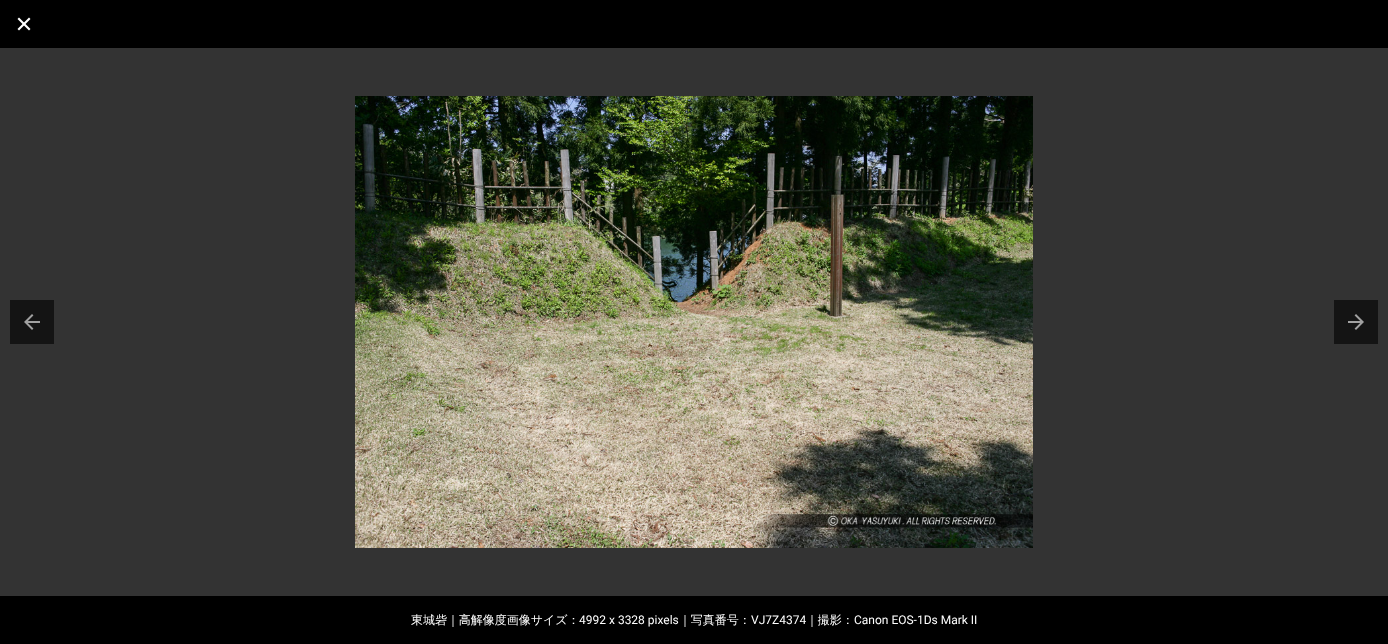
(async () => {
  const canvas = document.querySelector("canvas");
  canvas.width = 1388;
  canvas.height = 644;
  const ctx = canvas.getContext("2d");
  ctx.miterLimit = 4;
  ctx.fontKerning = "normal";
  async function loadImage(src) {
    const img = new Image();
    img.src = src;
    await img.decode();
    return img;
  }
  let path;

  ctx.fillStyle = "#333333";
  ctx.fillRect(0, 0, 1388, 644);
  ctx.fillStyle = "#000000";
  ctx.fillRect(0, 0, 1388, 48);
  ctx.fillStyle = "#ffffff";
  path = new Path2D("M19 17.5L30.5 29L29 30.5L17.5 19Z");
  ctx.fill(path);
  path = new Path2D("M17.5 29L29 17.5L30.5 19L19 30.5Z");
  ctx.fill(path);
  ctx.fillStyle = "#141414";
  ctx.fillRect(10, 300, 44, 44);
  ctx.drawImage(await loadImage("img/1.png"), 24, 314, 16, 16);
  ctx.fillRect(1334, 300, 44, 44);
  ctx.drawImage(await loadImage("img/2.png"), 1348, 314, 16, 16);
  ctx.drawImage(await loadImage("img/3.png"), 355, 96, 678, 452);
  ctx.fillStyle = "#000000";
  ctx.fillRect(0, 596, 1388, 48);
  ctx.font = "500 12px WenQuanYi Zen Hei";
  ctx.fillStyle = "#ffffff";
  ctx.fillText("東城砦｜高解像度画像サイズ：", 411, 624);
  ctx.font = "12px Roboto";
  ctx.fillText("4992 x 3328 pixels", 579, 624);
  ctx.font = "500 12px WenQuanYi Zen Hei";
  ctx.fillText("｜写真番号：", 679, 624);
  ctx.font = "12px Roboto";
  ctx.fillText("VJ7Z4374", 751, 624);
  ctx.font = "500 12px WenQuanYi Zen Hei";
  ctx.fillText("｜撮影：", 806, 624);
  ctx.font = "12px Roboto";
  ctx.fillText("Canon EOS-1Ds Mark II", 854, 624);
})();
